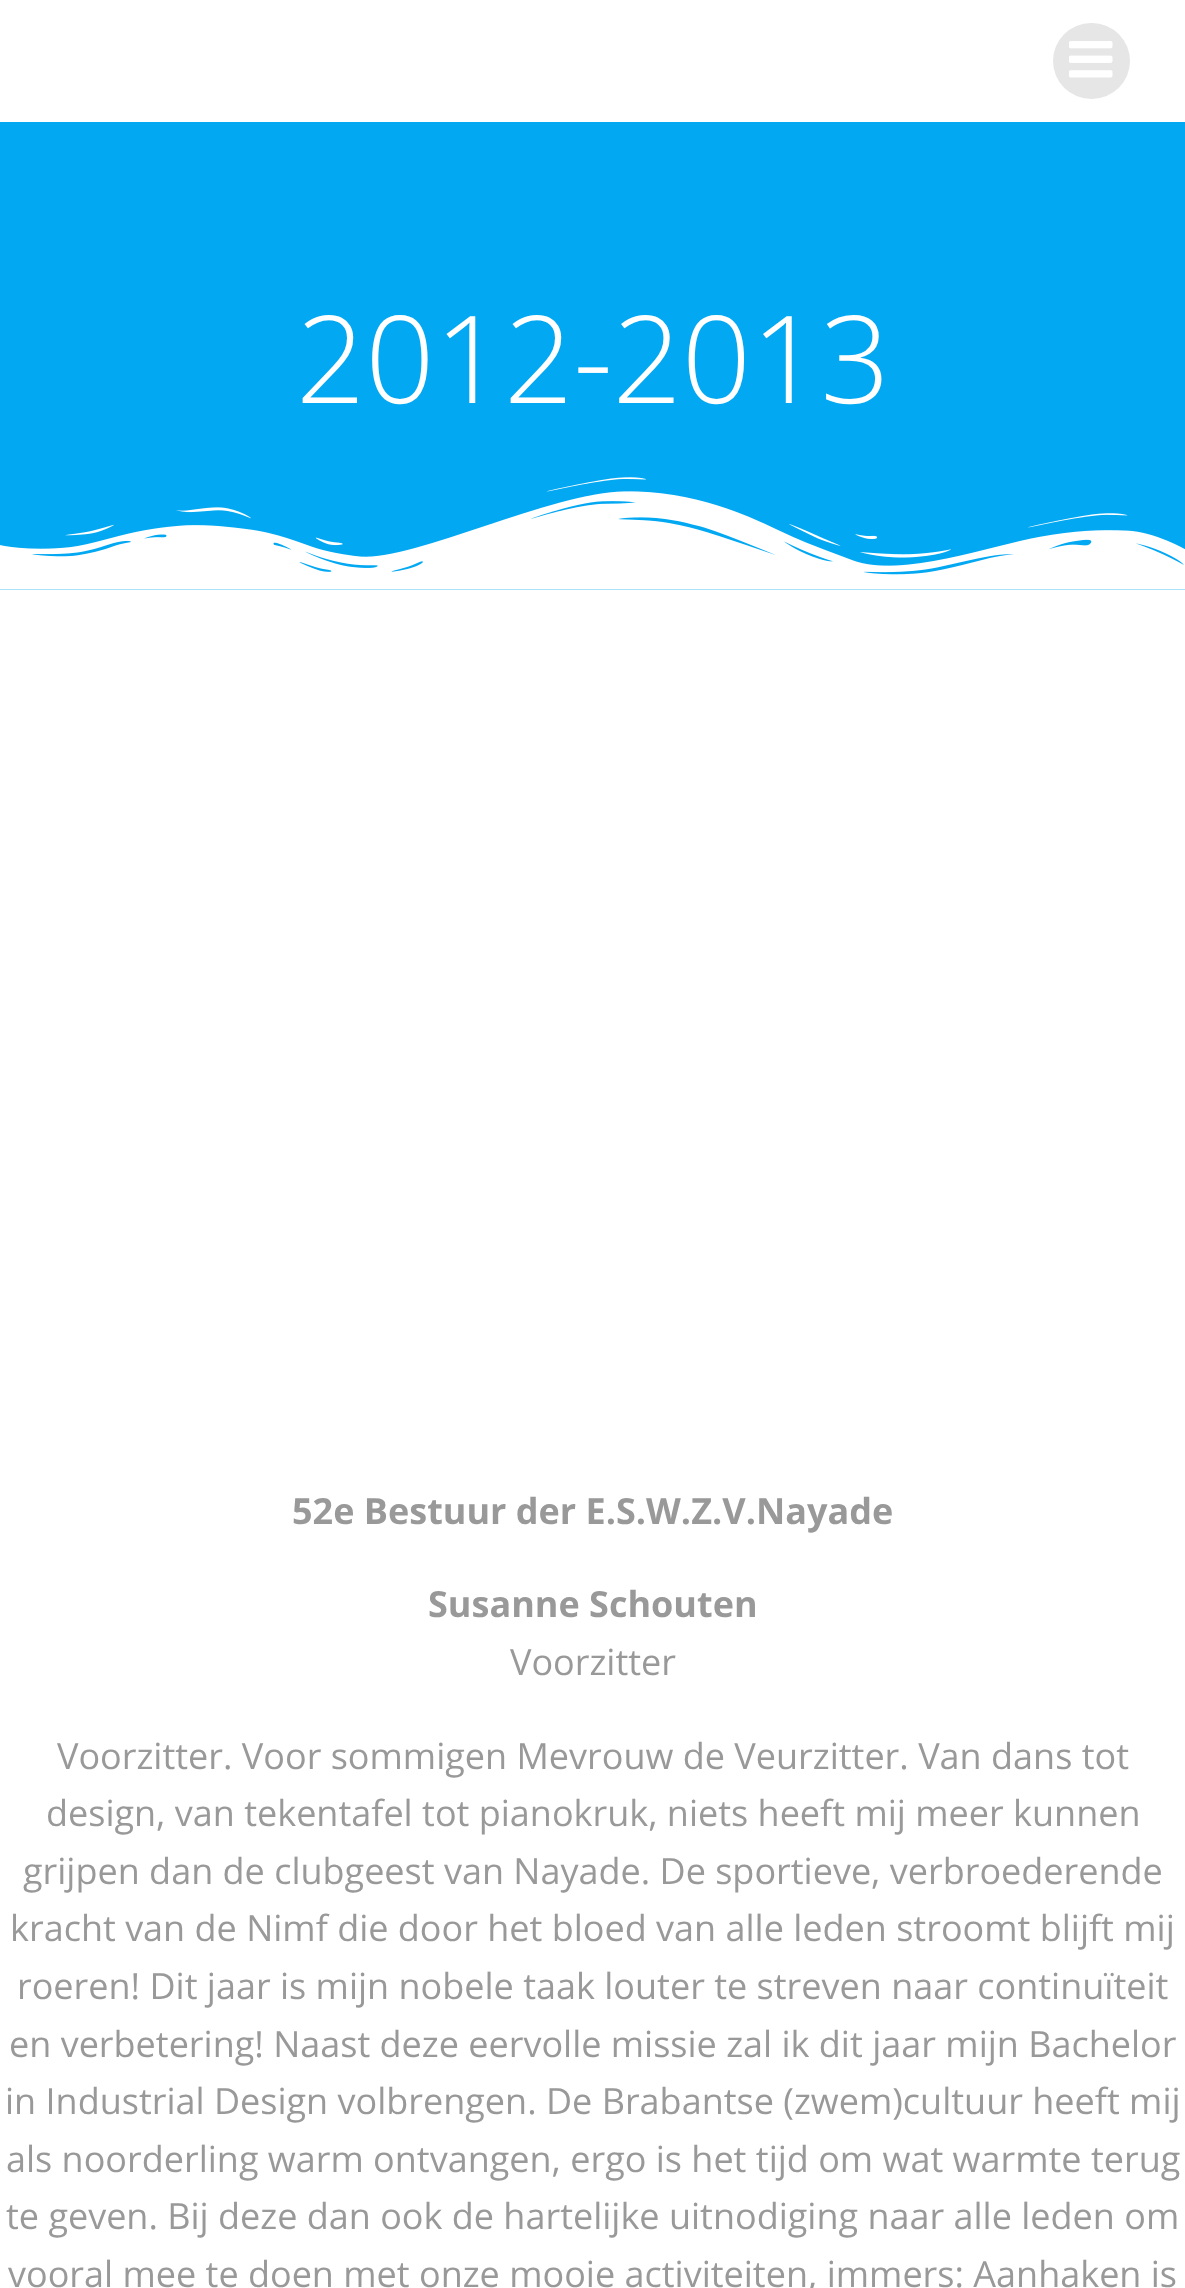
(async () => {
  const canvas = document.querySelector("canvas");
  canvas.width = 1185;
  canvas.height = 2288;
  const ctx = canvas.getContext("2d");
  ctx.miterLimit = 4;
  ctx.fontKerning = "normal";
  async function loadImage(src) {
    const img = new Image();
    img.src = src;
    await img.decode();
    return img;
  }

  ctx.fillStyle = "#ffffff";
  ctx.fillRect(0, 0, 1185, 2288);
  ctx.fillStyle = "#e6e6e6";
  ctx.beginPath();
  ctx.roundRect(1053, 23, 77, 76, 38);
  ctx.fill();
  ctx.drawImage(await loadImage("img/1.png"), 1069, 41, 44, 37);
  ctx.fillStyle = "#03a8f2";
  ctx.fillRect(0, 122, 1185, 468);
  ctx.drawImage(await loadImage("img/2.png"), 0, 477, 1185, 113);
  ctx.font = "300 121.5px Open Sans";
  ctx.fillStyle = "#ffffff";
  ctx.fillText("2012-2013", 296, 403);
  ctx.font = "bold 36px Open Sans";
  ctx.fillStyle = "#999999";
  ctx.fillText("52e Bestuur der E.S.W.Z.V.Nayade", 292, 1524);
  ctx.fillText("Susanne Schouten", 428, 1617);
  ctx.font = "36px Open Sans";
  for (const [text, x, y] of [
    ["Voorzitter", 510, 1675],
    ["Voorzitter. Voor sommigen Mevrouw de Veurzitter. Van dans tot", 57, 1769],
    ["design, van tekentafel tot pianokruk, niets heeft mij meer kunnen", 46, 1826],
    ["grijpen dan de clubgeest van Nayade. De sportieve, verbroederende", 23, 1884],
    ["kracht van de Nimf die door het bloed van alle leden stroomt blijft mij", 10, 1941],
    ["roeren! Dit jaar is mijn nobele taak louter te streven naar continuïteit", 17, 1999],
    ["en verbetering! Naast deze eervolle missie zal ik dit jaar mijn Bachelor", 9, 2057],
    ["in Industrial Design volbrengen. De Brabantse (zwem)cultuur heeft mij", 5, 2114],
    ["als noorderling warm ontvangen, ergo is het tijd om wat warmte terug", 6, 2172],
    ["te geven. Bij deze dan ook de hartelijke uitnodiging naar alle leden om", 6, 2229],
    ["vooral mee te doen met onze mooie activiteiten, immers: Aanhaken is", 8, 2287],
  ]) {
    ctx.fillText(text, x, y);
  }
})();
